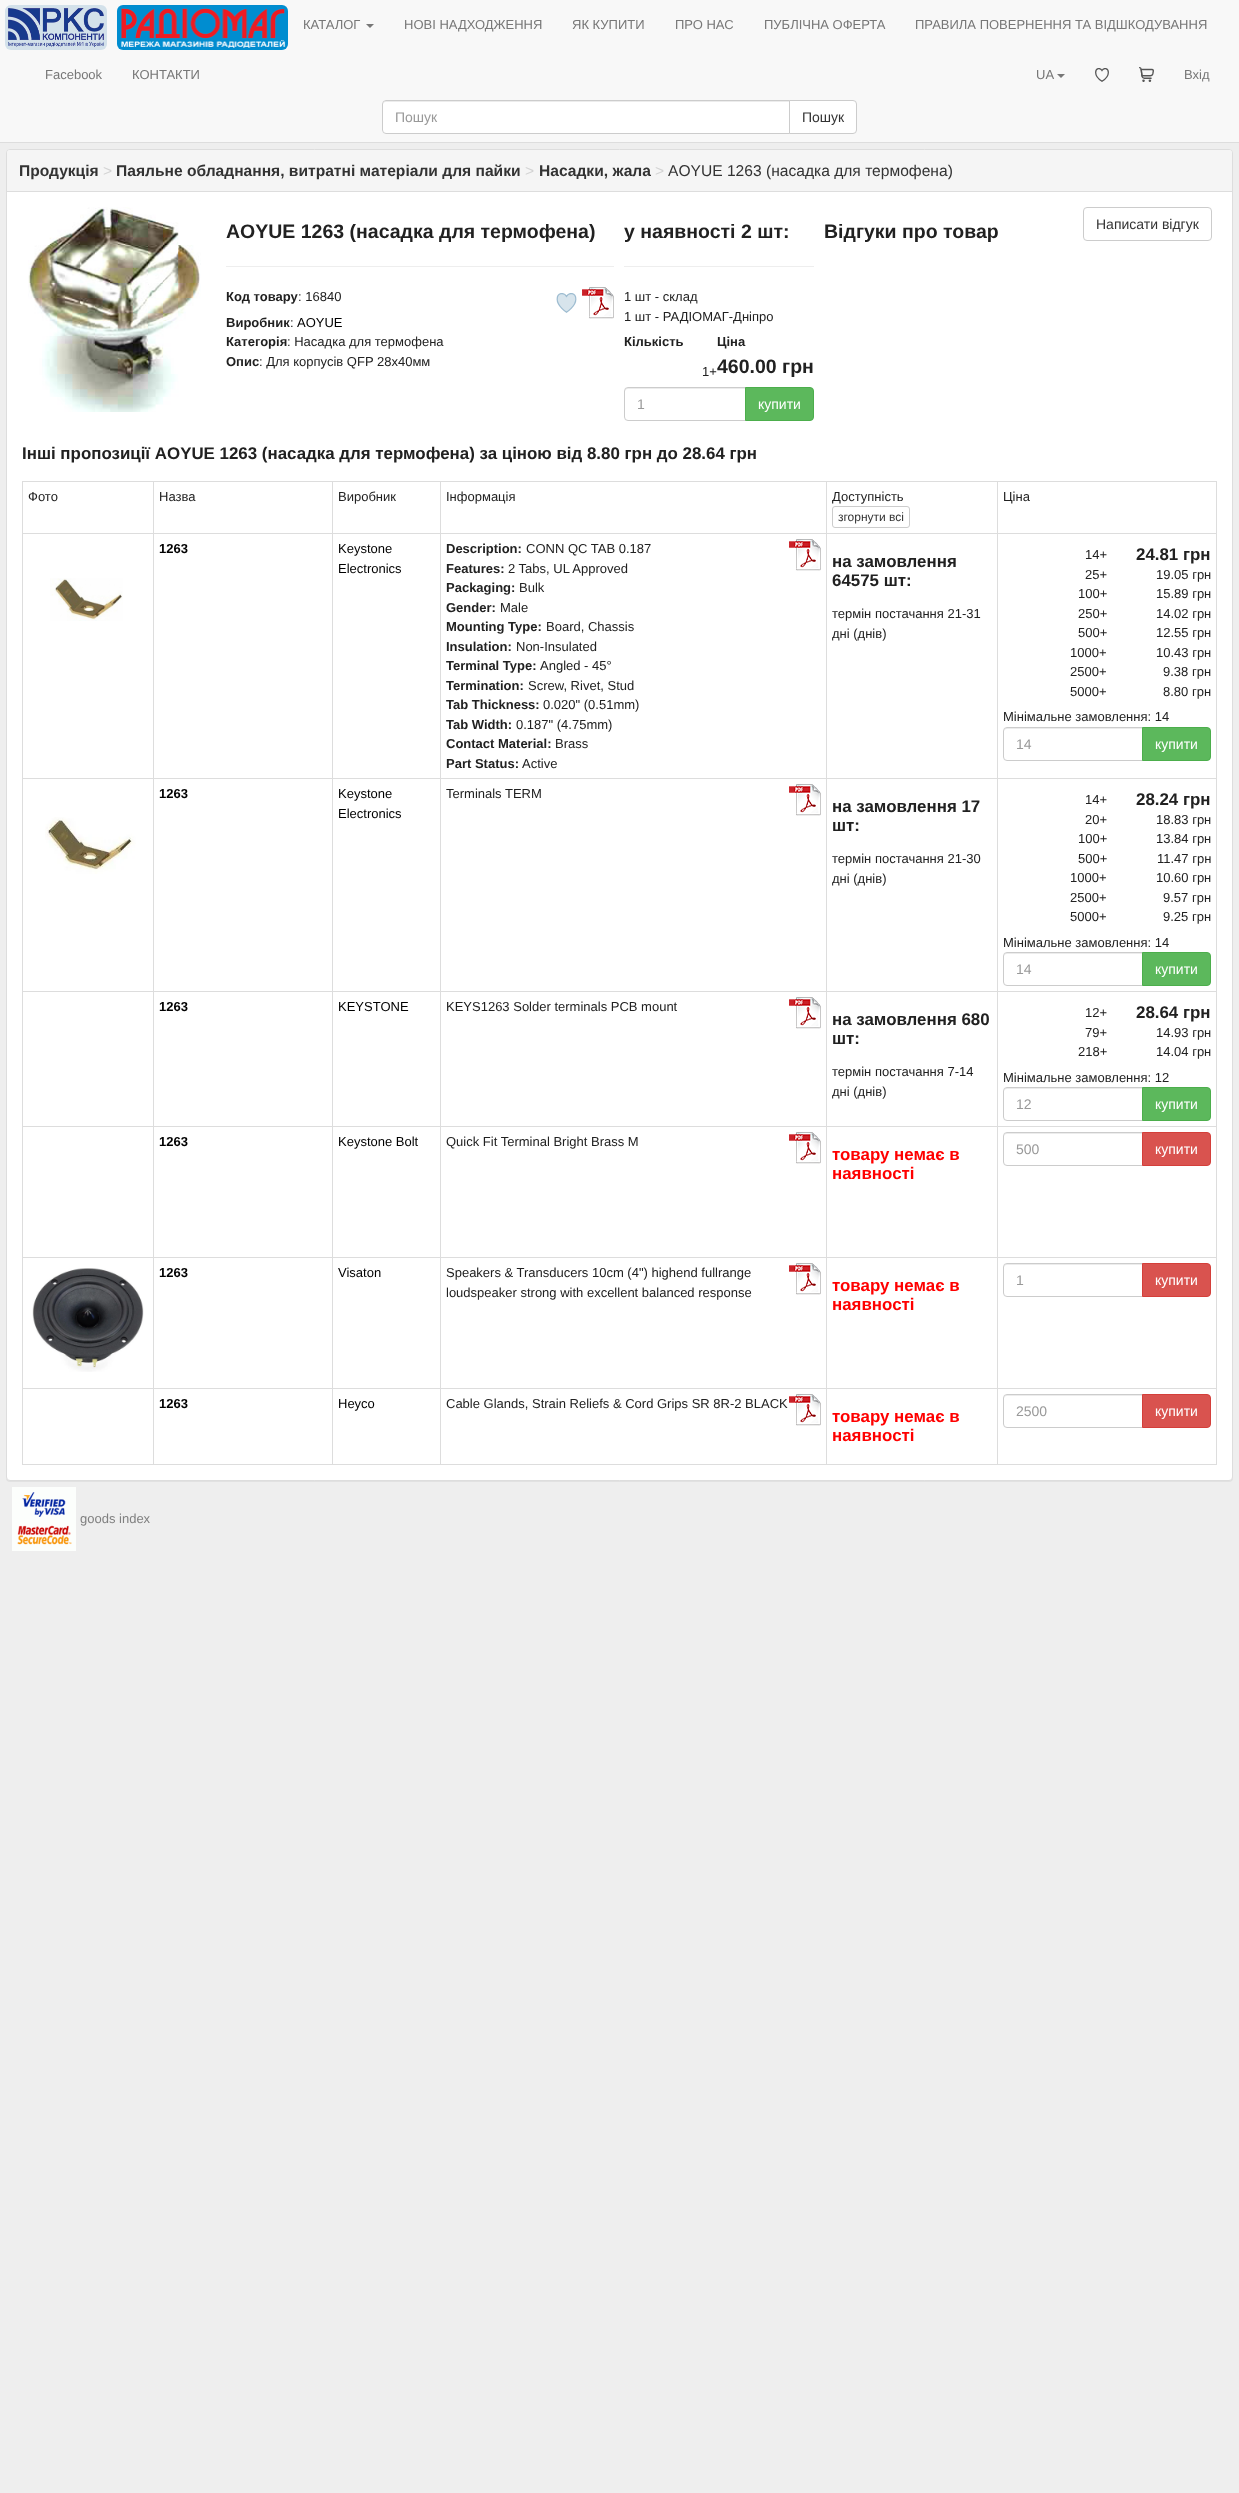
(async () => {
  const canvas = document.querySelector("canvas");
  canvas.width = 1239;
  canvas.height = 2493;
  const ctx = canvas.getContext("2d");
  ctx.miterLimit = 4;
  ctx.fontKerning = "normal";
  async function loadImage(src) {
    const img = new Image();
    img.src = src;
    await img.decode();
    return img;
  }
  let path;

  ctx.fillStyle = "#eeeeee";
  ctx.fillRect(0, 0, 1239, 2493);
  ctx.fillStyle = "#f8f8f8";
  ctx.fillRect(0, 0, 1239, 142);
  ctx.fillStyle = "#dddddd";
  ctx.fillRect(0, 142, 1239, 1);
  ctx.drawImage(await loadImage("img/1.png"), 5, 5, 102, 45);
  ctx.drawImage(await loadImage("img/2.png"), 117, 5, 171, 45);
  ctx.fillStyle = "#777777";
  path = new Path2D("M366 24H374L370 28Z");
  ctx.fill(path);
  path = new Path2D("M1057 74H1065L1061 78Z");
  ctx.fill(path);
  ctx.drawImage(await loadImage("img/3.png"), 1095, 68, 14, 14);
  ctx.drawImage(await loadImage("img/4.png"), 1139, 67, 15, 15);
  ctx.fillStyle = "#ffffff";
  ctx.beginPath();
  ctx.roundRect(382, 100, 408, 34, [4, 0, 0, 4]);
  ctx.fill();
  ctx.fillStyle = "#ececec";
  path = new Path2D("M386 102H789V101H386C384 101 383 103 383 105C383 103 384 102 386 102Z");
  ctx.fill(path);
  ctx.beginPath();
  ctx.roundRect(382.5, 100.5, 407, 33, [3.5, 0, 0, 3.5]);
  ctx.strokeStyle = "#cccccc";
  ctx.stroke();
  ctx.fillStyle = "#ffffff";
  ctx.beginPath();
  ctx.roundRect(789.5, 100.5, 67, 33, [0, 3.5, 3.5, 0]);
  ctx.fill();
  ctx.stroke();
  ctx.fillStyle = "rgba(0, 0, 0, 0.05)";
  ctx.filter = "blur(0.5px)";
  ctx.beginPath();
  ctx.roundRect(6, 150, 1227, 1332, 4);
  ctx.fill();
  ctx.filter = "none";
  ctx.fillStyle = "#ffffff";
  ctx.beginPath();
  ctx.roundRect(6.5, 149.5, 1226, 1331, 3.5);
  ctx.fill();
  ctx.strokeStyle = "#dddddd";
  ctx.stroke();
  ctx.fillStyle = "#f5f5f5";
  ctx.beginPath();
  ctx.roundRect(7, 150, 1225, 42, [3, 3, 0, 0]);
  ctx.fill();
  ctx.fillStyle = "#dddddd";
  ctx.fillRect(7, 191, 1225, 1);
  ctx.drawImage(await loadImage("img/5.png"), 28, 207, 173, 205);
  ctx.fillStyle = "#eeeeee";
  ctx.fillRect(226, 266, 388, 1);
  ctx.drawImage(await loadImage("img/6.png"), 556, 293, 21, 20);
  ctx.drawImage(await loadImage("img/7.png"), 582, 287, 32, 32);
  ctx.fillRect(624, 266, 190, 1);
  ctx.fillStyle = "#ececec";
  path = new Path2D("M628 389H745V388H628C626 388 625 389 625 391V392C625 390 626 389 628 389Z");
  ctx.fill(path);
  ctx.beginPath();
  ctx.roundRect(624.5, 387.5, 121, 33, [3.5, 0, 0, 3.5]);
  ctx.strokeStyle = "#cccccc";
  ctx.stroke();
  ctx.fillStyle = "#5cb85c";
  ctx.beginPath();
  ctx.roundRect(745.5, 387.5, 68, 33, [0, 3.5, 3.5, 0]);
  ctx.fill();
  ctx.strokeStyle = "#4cae4c";
  ctx.stroke();
  ctx.beginPath();
  ctx.roundRect(1083.5, 207.5, 128, 33, 3.5);
  ctx.strokeStyle = "#cccccc";
  ctx.stroke();
  for (const [x, y, w, h, color] of [
    [22, 481, 1195, 1, "#dddddd"],
    [1216, 481, 1, 984, "#dddddd"],
    [22, 1464, 1195, 1, "#dddddd"],
    [22, 481, 1, 984, "#dddddd"],
    [997, 533, 220, 1, "#dddddd"],
    [997, 778, 220, 1, "#dddddd"],
    [997, 991, 220, 1, "#dddddd"],
    [997, 1126, 220, 1, "#dddddd"],
    [997, 1257, 220, 1, "#dddddd"],
    [997, 1388, 220, 1, "#dddddd"],
    [997, 1388, 1, 77, "#dddddd"],
    [826, 1388, 172, 1, "#dddddd"],
    [997, 1257, 1, 132, "#dddddd"],
    [826, 1257, 172, 1, "#dddddd"],
    [997, 1126, 1, 132, "#dddddd"],
    [826, 1126, 172, 1, "#dddddd"],
    [997, 991, 1, 136, "#dddddd"],
    [826, 991, 172, 1, "#dddddd"],
    [997, 778, 1, 214, "#dddddd"],
    [826, 778, 172, 1, "#dddddd"],
    [997, 533, 1, 246, "#dddddd"],
    [826, 533, 172, 1, "#dddddd"],
    [826, 1388, 1, 77, "#dddddd"],
    [440, 1388, 387, 1, "#dddddd"],
    [826, 1257, 1, 132, "#dddddd"],
    [440, 1257, 387, 1, "#dddddd"],
    [826, 1126, 1, 132, "#dddddd"],
    [440, 1126, 387, 1, "#dddddd"],
    [826, 991, 1, 136, "#dddddd"],
    [440, 991, 387, 1, "#dddddd"],
    [826, 778, 1, 214, "#dddddd"],
    [440, 778, 387, 1, "#dddddd"],
    [826, 533, 1, 246, "#dddddd"],
    [440, 533, 387, 1, "#dddddd"],
    [440, 1388, 1, 77, "#dddddd"],
    [332, 1388, 109, 1, "#dddddd"],
    [440, 1257, 1, 132, "#dddddd"],
    [332, 1257, 109, 1, "#dddddd"],
    [440, 1126, 1, 132, "#dddddd"],
    [332, 1126, 109, 1, "#dddddd"],
    [440, 991, 1, 136, "#dddddd"],
    [332, 991, 109, 1, "#dddddd"],
    [440, 778, 1, 214, "#dddddd"],
    [332, 778, 109, 1, "#dddddd"],
    [440, 533, 1, 246, "#dddddd"],
    [332, 533, 109, 1, "#dddddd"],
    [332, 1388, 1, 77, "#dddddd"],
    [153, 1388, 180, 1, "#dddddd"],
    [332, 1257, 1, 132, "#dddddd"],
    [153, 1257, 180, 1, "#dddddd"],
    [332, 1126, 1, 132, "#dddddd"],
    [153, 1126, 180, 1, "#dddddd"],
    [332, 991, 1, 136, "#dddddd"],
    [153, 991, 180, 1, "#dddddd"],
    [332, 778, 1, 214, "#dddddd"],
    [153, 778, 180, 1, "#dddddd"],
    [332, 533, 1, 246, "#dddddd"],
    [153, 533, 180, 1, "#dddddd"],
    [153, 1388, 1, 77, "#dddddd"],
    [22, 1388, 132, 1, "#dddddd"],
    [153, 1257, 1, 132, "#dddddd"],
    [22, 1257, 132, 1, "#dddddd"],
    [153, 1126, 1, 132, "#dddddd"],
    [22, 1126, 132, 1, "#dddddd"],
    [153, 991, 1, 136, "#dddddd"],
    [22, 991, 132, 1, "#dddddd"],
    [153, 778, 1, 214, "#dddddd"],
    [22, 778, 132, 1, "#dddddd"],
    [153, 533, 1, 246, "#dddddd"],
    [22, 533, 132, 1, "#dddddd"],
    [153, 481, 1, 53, "#dddddd"],
    [332, 481, 1, 53, "#dddddd"],
    [440, 481, 1, 53, "#dddddd"],
    [826, 481, 1, 53, "#dddddd"],
  ]) {
    ctx.fillStyle = color;
    ctx.fillRect(x, y, w, h);
  }
  ctx.beginPath();
  ctx.roundRect(832.5, 506.5, 77, 21, 2.5);
  ctx.stroke();
  ctx.fillRect(997, 481, 1, 53);
  ctx.drawImage(await loadImage("img/8.png"), 50, 578, 73, 43);
  ctx.drawImage(await loadImage("img/7.png"), 789, 539, 32, 32);
  ctx.fillStyle = "#ececec";
  path = new Path2D("M1007 729H1142V728H1007C1005 728 1004 730 1004 732C1004 730 1005 729 1007 729Z");
  ctx.fill(path);
  ctx.beginPath();
  ctx.roundRect(1003.5, 727.5, 139, 33, [3.5, 0, 0, 3.5]);
  ctx.stroke();
  ctx.fillStyle = "#5cb85c";
  ctx.beginPath();
  ctx.roundRect(1142.5, 727.5, 68, 33, [0, 3.5, 3.5, 0]);
  ctx.fill();
  ctx.strokeStyle = "#4cae4c";
  ctx.stroke();
  ctx.drawImage(await loadImage("img/9.png"), 45, 817, 91, 57);
  ctx.drawImage(await loadImage("img/7.png"), 789, 784, 32, 32);
  ctx.fillStyle = "#ececec";
  path = new Path2D("M1007 954H1142V953H1007C1005 953 1004 955 1004 957C1004 955 1005 954 1007 954Z");
  ctx.fill(path);
  ctx.beginPath();
  ctx.roundRect(1003.5, 952.5, 139, 33, [3.5, 0, 0, 3.5]);
  ctx.strokeStyle = "#cccccc";
  ctx.stroke();
  ctx.fillStyle = "#5cb85c";
  ctx.beginPath();
  ctx.roundRect(1142.5, 952.5, 68, 33, [0, 3.5, 3.5, 0]);
  ctx.fill();
  ctx.strokeStyle = "#4cae4c";
  ctx.stroke();
  ctx.drawImage(await loadImage("img/7.png"), 789, 997, 32, 32);
  ctx.fillStyle = "#ececec";
  path = new Path2D("M1007 1089H1142V1088H1007C1005 1088 1004 1090 1004 1092C1004 1090 1005 1089 1007 1089Z");
  ctx.fill(path);
  ctx.beginPath();
  ctx.roundRect(1003.5, 1087.5, 139, 33, [3.5, 0, 0, 3.5]);
  ctx.strokeStyle = "#cccccc";
  ctx.stroke();
  ctx.fillStyle = "#5cb85c";
  ctx.beginPath();
  ctx.roundRect(1142.5, 1087.5, 68, 33, [0, 3.5, 3.5, 0]);
  ctx.fill();
  ctx.strokeStyle = "#4cae4c";
  ctx.stroke();
  ctx.drawImage(await loadImage("img/7.png"), 789, 1132, 32, 32);
  ctx.fillStyle = "#ececec";
  path = new Path2D("M1007 1134H1142V1133H1007C1005 1133 1004 1135 1004 1137C1004 1135 1005 1134 1007 1134Z");
  ctx.fill(path);
  ctx.beginPath();
  ctx.roundRect(1003.5, 1132.5, 139, 33, [3.5, 0, 0, 3.5]);
  ctx.strokeStyle = "#cccccc";
  ctx.stroke();
  ctx.fillStyle = "#d9534f";
  ctx.beginPath();
  ctx.roundRect(1142.5, 1132.5, 68, 33, [0, 3.5, 3.5, 0]);
  ctx.fill();
  ctx.strokeStyle = "#d43f3a";
  ctx.stroke();
  ctx.drawImage(await loadImage("img/10.png"), 32, 1268, 112, 104);
  ctx.drawImage(await loadImage("img/7.png"), 789, 1263, 32, 32);
  ctx.fillStyle = "#ececec";
  path = new Path2D("M1007 1265H1142V1264H1007C1005 1264 1004 1266 1004 1268C1004 1266 1005 1265 1007 1265Z");
  ctx.fill(path);
  ctx.beginPath();
  ctx.roundRect(1003.5, 1263.5, 139, 33, [3.5, 0, 0, 3.5]);
  ctx.strokeStyle = "#cccccc";
  ctx.stroke();
  ctx.fillStyle = "#d9534f";
  ctx.beginPath();
  ctx.roundRect(1142.5, 1263.5, 68, 33, [0, 3.5, 3.5, 0]);
  ctx.fill();
  ctx.strokeStyle = "#d43f3a";
  ctx.stroke();
  ctx.drawImage(await loadImage("img/7.png"), 789, 1394, 32, 32);
  ctx.fillStyle = "#ececec";
  path = new Path2D("M1007 1396H1142V1395H1007C1005 1395 1004 1397 1004 1399C1004 1397 1005 1396 1007 1396Z");
  ctx.fill(path);
  ctx.beginPath();
  ctx.roundRect(1003.5, 1394.5, 139, 33, [3.5, 0, 0, 3.5]);
  ctx.strokeStyle = "#cccccc";
  ctx.stroke();
  ctx.fillStyle = "#d9534f";
  ctx.beginPath();
  ctx.roundRect(1142.5, 1394.5, 68, 33, [0, 3.5, 3.5, 0]);
  ctx.fill();
  ctx.strokeStyle = "#d43f3a";
  ctx.stroke();
  ctx.drawImage(await loadImage("img/11.png"), 12, 1487, 64, 64);
  ctx.font = "13px Liberation Sans";
  ctx.fillStyle = "#777777";
  for (const [text, x, y] of [
    ["КАТАЛОГ", 303, 29],
    ["НОВІ НАДХОДЖЕННЯ", 404, 29],
    ["ЯК КУПИТИ", 572, 29],
    ["ПРО НАС", 675, 29],
    ["ПУБЛІЧНА ОФЕРТА", 764, 29],
    ["ПРАВИЛА ПОВЕРНЕННЯ ТА ВІДШКОДУВАННЯ", 915, 29],
    ["Facebook", 45, 79],
    ["КОНТАКТИ", 132, 79],
    ["UA", 1036, 79],
    ["Вхід", 1184, 79],
  ]) {
    ctx.fillText(text, x, y);
  }
  ctx.font = "14px Liberation Sans";
  ctx.fillStyle = "#999999";
  ctx.fillText("Пошук", 395, 122);
  ctx.fillStyle = "#333333";
  ctx.fillText("Пошук", 802, 122);
  ctx.font = "bold 15.6px Liberation Sans";
  ctx.fillText("Продукція", 19, 176);
  ctx.font = "15.6px Liberation Sans";
  ctx.fillStyle = "#d3d3d3";
  ctx.fillText(">", 103, 176);
  ctx.font = "bold 15.6px Liberation Sans";
  ctx.fillStyle = "#333333";
  ctx.fillText("Паяльне обладнання, витратні матеріали для пайки", 116, 176);
  ctx.font = "15.6px Liberation Sans";
  ctx.fillStyle = "#d3d3d3";
  ctx.fillText(">", 525, 176);
  ctx.font = "bold 15.6px Liberation Sans";
  ctx.fillStyle = "#333333";
  ctx.fillText("Насадки, жала", 539, 176);
  ctx.font = "15.6px Liberation Sans";
  ctx.fillStyle = "#d3d3d3";
  ctx.fillText(">", 655, 176);
  ctx.fillStyle = "#333333";
  ctx.fillText("AOYUE 1263 (насадка для термофена)", 668, 176);
  ctx.font = "bold 19.5px Liberation Sans";
  ctx.fillStyle = "#212121";
  ctx.fillText("AOYUE 1263 (насадка для термофена)", 226, 238);
  ctx.font = "bold 13px Liberation Sans";
  ctx.fillText("Код товару", 226, 301);
  ctx.font = "13px Liberation Sans";
  ctx.fillText(": 16840", 298, 301);
  ctx.font = "bold 13px Liberation Sans";
  ctx.fillText("Виробник", 226, 327);
  ctx.font = "13px Liberation Sans";
  ctx.fillText(":", 290, 327);
  ctx.fillStyle = "#000000";
  ctx.fillText("AOYUE", 297, 327);
  ctx.font = "bold 13px Liberation Sans";
  ctx.fillStyle = "#212121";
  ctx.fillText("Категорія", 226, 346);
  ctx.font = "13px Liberation Sans";
  ctx.fillText(": Насадка для термофена", 287, 346);
  ctx.font = "bold 13px Liberation Sans";
  ctx.fillText("Опис", 226, 366);
  ctx.font = "13px Liberation Sans";
  ctx.fillText(": Для корпусів QFP 28x40мм", 259, 366);
  ctx.font = "bold 19.5px Liberation Sans";
  ctx.fillText("у наявності 2 шт:", 624, 238);
  ctx.font = "13px Liberation Sans";
  ctx.fillText("1 шт - склад", 624, 301);
  ctx.fillText("1 шт - РАДІОМАГ-Дніпро", 624, 321);
  ctx.font = "bold 13px Liberation Sans";
  ctx.fillText("Кількість", 624, 346);
  ctx.fillText("Ціна", 717, 346);
  ctx.font = "13px Liberation Sans";
  ctx.fillText("1+", 702, 376);
  ctx.font = "bold 19.5px Liberation Sans";
  ctx.fillText("460.00 грн", 717, 373);
  ctx.font = "14px Liberation Sans";
  ctx.fillStyle = "#999999";
  ctx.fillText("1", 637, 409);
  ctx.fillStyle = "#ffffff";
  ctx.fillText("купити", 758, 409);
  ctx.font = "bold 19.5px Liberation Sans";
  ctx.fillStyle = "#212121";
  ctx.fillText("Відгуки про товар", 824, 238);
  ctx.font = "14px Liberation Sans";
  ctx.fillStyle = "#333333";
  ctx.fillText("Написати відгук", 1096, 229);
  ctx.font = "bold 16.9px Liberation Sans";
  ctx.fillStyle = "#212121";
  ctx.fillText("Інші пропозиції AOYUE 1263 (насадка для термофена) за ціною від 8.80 грн до 28.64 грн", 22, 459);
  ctx.font = "13px Liberation Sans";
  for (const [text, x, y] of [
    ["Фото", 28, 501],
    ["Назва", 159, 501],
    ["Виробник", 338, 501],
    ["Інформація", 446, 501],
    ["Доступність", 832, 501],
  ]) {
    ctx.fillText(text, x, y);
  }
  ctx.font = "12px Liberation Sans";
  ctx.fillStyle = "#333333";
  ctx.fillText("згорнути всі", 838, 521);
  ctx.font = "13px Liberation Sans";
  ctx.fillStyle = "#212121";
  ctx.fillText("Ціна", 1003, 501);
  ctx.font = "bold 13px Liberation Sans";
  ctx.fillStyle = "#000000";
  ctx.fillText("1263", 159, 553);
  ctx.font = "13px Liberation Sans";
  ctx.fillText("Keystone", 338, 553);
  ctx.fillText("Electronics", 338, 573);
  ctx.font = "bold 13px Liberation Sans";
  ctx.fillStyle = "#212121";
  ctx.fillText("Description:", 446, 553);
  ctx.font = "13px Liberation Sans";
  ctx.fillText("CONN QC TAB 0.187", 526, 553);
  ctx.font = "bold 13px Liberation Sans";
  ctx.fillText("Features:", 446, 573);
  ctx.font = "13px Liberation Sans";
  ctx.fillText("2 Tabs, UL Approved", 508, 573);
  ctx.font = "bold 13px Liberation Sans";
  ctx.fillText("Packaging:", 446, 592);
  ctx.font = "13px Liberation Sans";
  ctx.fillText("Bulk", 519, 592);
  ctx.font = "bold 13px Liberation Sans";
  ctx.fillText("Gender:", 446, 612);
  ctx.font = "13px Liberation Sans";
  ctx.fillText("Male", 500, 612);
  ctx.font = "bold 13px Liberation Sans";
  ctx.fillText("Mounting Type:", 446, 631);
  ctx.font = "13px Liberation Sans";
  ctx.fillText("Board, Chassis", 546, 631);
  ctx.font = "bold 13px Liberation Sans";
  ctx.fillText("Insulation:", 446, 651);
  ctx.font = "13px Liberation Sans";
  ctx.fillText("Non-Insulated", 516, 651);
  ctx.font = "bold 13px Liberation Sans";
  ctx.fillText("Terminal Type:", 446, 670);
  ctx.font = "13px Liberation Sans";
  ctx.fillText("Angled - 45°", 540, 670);
  ctx.font = "bold 13px Liberation Sans";
  ctx.fillText("Termination:", 446, 690);
  ctx.font = "13px Liberation Sans";
  ctx.fillText("Screw, Rivet, Stud", 528, 690);
  ctx.font = "bold 13px Liberation Sans";
  ctx.fillText("Tab Thickness:", 446, 709);
  ctx.font = "13px Liberation Sans";
  ctx.fillText("0.020\" (0.51mm)", 543, 709);
  ctx.font = "bold 13px Liberation Sans";
  ctx.fillText("Tab Width:", 446, 729);
  ctx.font = "13px Liberation Sans";
  ctx.fillText("0.187\" (4.75mm)", 516, 729);
  ctx.font = "bold 13px Liberation Sans";
  ctx.fillText("Contact Material:", 446, 748);
  ctx.font = "13px Liberation Sans";
  ctx.fillText("Brass", 555, 748);
  ctx.font = "bold 13px Liberation Sans";
  ctx.fillText("Part Status:", 446, 768);
  ctx.font = "13px Liberation Sans";
  ctx.fillText("Active", 522, 768);
  ctx.font = "bold 16.9px Liberation Sans";
  ctx.fillText("на замовлення", 832, 567);
  ctx.fillText("64575 шт:", 832, 586);
  ctx.font = "13px Liberation Sans";
  for (const [text, x, y] of [
    ["термін постачання 21-31", 832, 618],
    ["дні (днів)", 832, 638],
    ["14+", 1085, 559],
  ]) {
    ctx.fillText(text, x, y);
  }
  ctx.font = "bold 16.9px Liberation Sans";
  ctx.fillText("24.81 грн", 1136, 560);
  ctx.font = "13px Liberation Sans";
  for (const [text, x, y] of [
    ["25+", 1085, 579],
    ["19.05 грн", 1156, 579],
    ["100+", 1078, 598],
    ["15.89 грн", 1156, 598],
    ["250+", 1078, 618],
    ["14.02 грн", 1156, 618],
    ["500+", 1078, 637],
    ["12.55 грн", 1156, 637],
    ["1000+", 1070, 657],
    ["10.43 грн", 1156, 657],
    ["2500+", 1070, 676],
    ["9.38 грн", 1163, 676],
    ["5000+", 1070, 696],
    ["8.80 грн", 1163, 696],
    ["Мінімальне замовлення: 14", 1003, 721],
  ]) {
    ctx.fillText(text, x, y);
  }
  ctx.font = "14px Liberation Sans";
  ctx.fillStyle = "#999999";
  ctx.fillText("14", 1016, 749);
  ctx.fillStyle = "#ffffff";
  ctx.fillText("купити", 1155, 749);
  ctx.font = "bold 13px Liberation Sans";
  ctx.fillStyle = "#000000";
  ctx.fillText("1263", 159, 798);
  ctx.font = "13px Liberation Sans";
  ctx.fillText("Keystone", 338, 798);
  ctx.fillText("Electronics", 338, 818);
  ctx.fillStyle = "#212121";
  ctx.fillText("Terminals TERM", 446, 798);
  ctx.font = "bold 16.9px Liberation Sans";
  ctx.fillText("на замовлення 17", 832, 812);
  ctx.fillText("шт:", 832, 831);
  ctx.font = "13px Liberation Sans";
  for (const [text, x, y] of [
    ["термін постачання 21-30", 832, 863],
    ["дні (днів)", 832, 883],
    ["14+", 1085, 804],
  ]) {
    ctx.fillText(text, x, y);
  }
  ctx.font = "bold 16.9px Liberation Sans";
  ctx.fillText("28.24 грн", 1136, 805);
  ctx.font = "13px Liberation Sans";
  for (const [text, x, y] of [
    ["20+", 1085, 824],
    ["18.83 грн", 1156, 824],
    ["100+", 1078, 843],
    ["13.84 грн", 1156, 843],
    ["500+", 1078, 863],
    ["11.47 грн", 1157, 863],
    ["1000+", 1070, 882],
    ["10.60 грн", 1156, 882],
    ["2500+", 1070, 902],
    ["9.57 грн", 1163, 902],
    ["5000+", 1070, 921],
    ["9.25 грн", 1163, 921],
    ["Мінімальне замовлення: 14", 1003, 947],
  ]) {
    ctx.fillText(text, x, y);
  }
  ctx.font = "14px Liberation Sans";
  ctx.fillStyle = "#999999";
  ctx.fillText("14", 1016, 974);
  ctx.fillStyle = "#ffffff";
  ctx.fillText("купити", 1155, 974);
  ctx.font = "bold 13px Liberation Sans";
  ctx.fillStyle = "#000000";
  ctx.fillText("1263", 159, 1011);
  ctx.font = "13px Liberation Sans";
  ctx.fillText("KEYSTONE", 338, 1011);
  ctx.fillStyle = "#212121";
  ctx.fillText("KEYS1263 Solder terminals PCB mount", 446, 1011);
  ctx.font = "bold 16.9px Liberation Sans";
  ctx.fillText("на замовлення 680", 832, 1025);
  ctx.fillText("шт:", 832, 1044);
  ctx.font = "13px Liberation Sans";
  for (const [text, x, y] of [
    ["термін постачання 7-14", 832, 1076],
    ["дні (днів)", 832, 1096],
    ["12+", 1085, 1017],
  ]) {
    ctx.fillText(text, x, y);
  }
  ctx.font = "bold 16.9px Liberation Sans";
  ctx.fillText("28.64 грн", 1136, 1018);
  ctx.font = "13px Liberation Sans";
  for (const [text, x, y] of [
    ["79+", 1085, 1037],
    ["14.93 грн", 1156, 1037],
    ["218+", 1078, 1056],
    ["14.04 грн", 1156, 1056],
    ["Мінімальне замовлення: 12", 1003, 1082],
  ]) {
    ctx.fillText(text, x, y);
  }
  ctx.font = "14px Liberation Sans";
  ctx.fillStyle = "#999999";
  ctx.fillText("12", 1016, 1109);
  ctx.fillStyle = "#ffffff";
  ctx.fillText("купити", 1155, 1109);
  ctx.font = "bold 13px Liberation Sans";
  ctx.fillStyle = "#000000";
  ctx.fillText("1263", 159, 1146);
  ctx.font = "13px Liberation Sans";
  ctx.fillText("Keystone Bolt", 338, 1146);
  ctx.fillStyle = "#212121";
  ctx.fillText("Quick Fit Terminal Bright Brass M", 446, 1146);
  ctx.font = "bold 16.9px Liberation Sans";
  ctx.fillStyle = "#ff0000";
  ctx.fillText("товару немає в", 832, 1160);
  ctx.fillText("наявності", 832, 1179);
  ctx.font = "14px Liberation Sans";
  ctx.fillStyle = "#999999";
  ctx.fillText("500", 1016, 1154);
  ctx.fillStyle = "#ffffff";
  ctx.fillText("купити", 1155, 1154);
  ctx.font = "bold 13px Liberation Sans";
  ctx.fillStyle = "#000000";
  ctx.fillText("1263", 159, 1277);
  ctx.font = "13px Liberation Sans";
  ctx.fillText("Visaton", 338, 1277);
  ctx.fillStyle = "#212121";
  ctx.fillText("Speakers & Transducers 10cm (4\") highend fullrange", 446, 1277);
  ctx.fillText("loudspeaker strong with excellent balanced response", 446, 1297);
  ctx.font = "bold 16.9px Liberation Sans";
  ctx.fillStyle = "#ff0000";
  ctx.fillText("товару немає в", 832, 1291);
  ctx.fillText("наявності", 832, 1310);
  ctx.font = "14px Liberation Sans";
  ctx.fillStyle = "#999999";
  ctx.fillText("1", 1016, 1285);
  ctx.fillStyle = "#ffffff";
  ctx.fillText("купити", 1155, 1285);
  ctx.font = "bold 13px Liberation Sans";
  ctx.fillStyle = "#000000";
  ctx.fillText("1263", 159, 1408);
  ctx.font = "13px Liberation Sans";
  ctx.fillText("Heyco", 338, 1408);
  ctx.fillStyle = "#212121";
  ctx.fillText("Cable Glands, Strain Reliefs & Cord Grips SR 8R-2 BLACK", 446, 1408);
  ctx.font = "bold 16.9px Liberation Sans";
  ctx.fillStyle = "#ff0000";
  ctx.fillText("товару немає в", 832, 1422);
  ctx.fillText("наявності", 832, 1441);
  ctx.font = "14px Liberation Sans";
  ctx.fillStyle = "#999999";
  ctx.fillText("2500", 1016, 1416);
  ctx.fillStyle = "#ffffff";
  ctx.fillText("купити", 1155, 1416);
  ctx.font = "13px Liberation Sans";
  ctx.fillStyle = "#808080";
  ctx.fillText("goods index", 80, 1523);
})();
